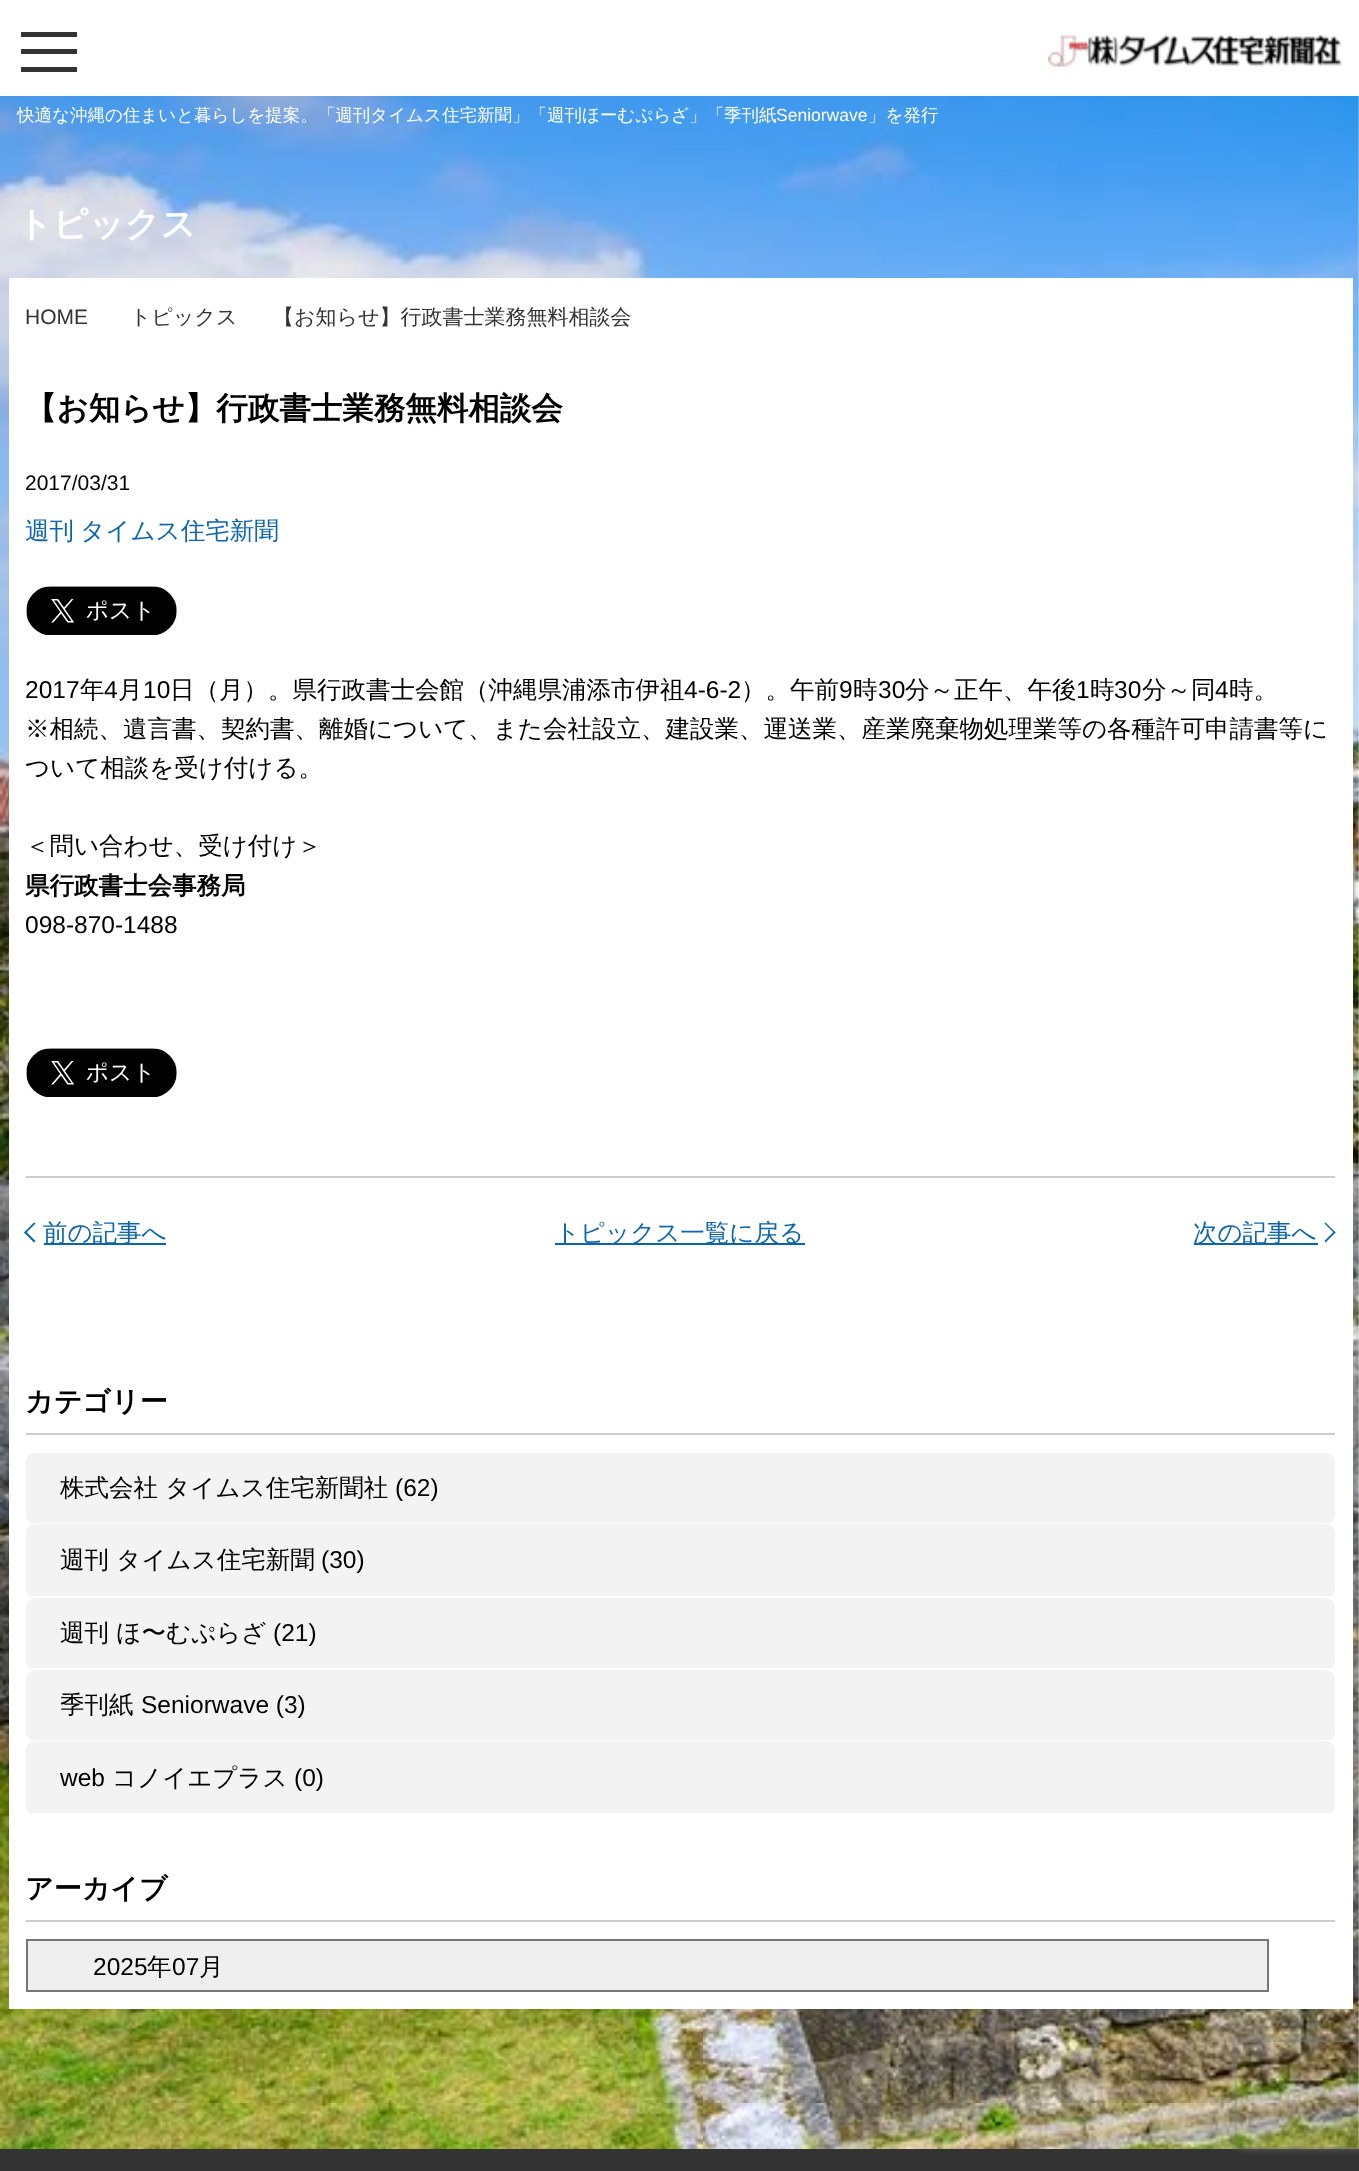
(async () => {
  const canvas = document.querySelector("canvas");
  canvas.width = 1359;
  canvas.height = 2171;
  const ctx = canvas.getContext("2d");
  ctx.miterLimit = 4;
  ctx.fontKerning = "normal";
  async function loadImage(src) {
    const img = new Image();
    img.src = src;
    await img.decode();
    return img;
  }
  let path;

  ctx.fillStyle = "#ffffff";
  ctx.fillRect(0, 0, 1359, 2171);
  for (const [x, y, w, h, color] of [
    [21, 49, 56, 5, "#333333"],
    [21, 32, 56, 5, "#333333"],
    [21, 67, 56, 5, "#333333"],
  ]) {
    ctx.fillStyle = color;
    ctx.fillRect(x, y, w, h);
  }
  ctx.drawImage(await loadImage("img/1.png"), 1048, 34, 295, 34);
  ctx.drawImage(await loadImage("img/2.png"), 0, 96, 1359, 2053);
  ctx.fillStyle = "#ffffff";
  ctx.fillRect(9, 278, 1344, 1731);
  ctx.drawImage(await loadImage("img/3.png"), 26, 586, 151, 49);
  ctx.drawImage(await loadImage("img/3.png"), 26, 1048, 151, 49);
  ctx.fillStyle = "#cccccc";
  ctx.fillRect(26, 1176, 1309, 2);
  ctx.fillStyle = "#0c65ac";
  path = new Path2D("M24 1232.5L34 1222.5L35.5 1223.5L25.5 1233.5Z");
  ctx.fill(path);
  path = new Path2D("M24 1232.5L25.5 1231L35.5 1241L34 1242.5Z");
  ctx.fill(path);
  for (const [x, y, w, h, color] of [
    [44, 1243, 122, 2, "#0c65ac"],
    [555, 1243, 250, 2, "#0c65ac"],
    [1194, 1243, 124, 2, "#0c65ac"],
  ]) {
    ctx.fillStyle = color;
    ctx.fillRect(x, y, w, h);
  }
  path = new Path2D("M1325.5 1222.5L1335.5 1232.5L1334.5 1233.5L1324.5 1223.5Z");
  ctx.fill(path);
  path = new Path2D("M1334.5 1231L1335.5 1232.5L1325.5 1242.5L1324.5 1241Z");
  ctx.fill(path);
  ctx.fillStyle = "#cccccc";
  ctx.fillRect(26, 1433, 1309, 2);
  ctx.fillStyle = "#f3f3f3";
  ctx.beginPath();
  ctx.roundRect(26, 1453, 1309, 71, 9);
  ctx.fill();
  ctx.fillStyle = "#ffffff";
  ctx.fillRect(32, 1523, 1300, 1);
  ctx.fillStyle = "#f3f3f3";
  ctx.beginPath();
  ctx.roundRect(26, 1524, 1309, 74, 9);
  ctx.fill();
  ctx.fillStyle = "#ffffff";
  ctx.fillRect(32, 1596, 1300, 2);
  ctx.fillStyle = "#f3f3f3";
  ctx.beginPath();
  ctx.roundRect(26, 1598, 1309, 72, 9);
  ctx.fill();
  ctx.fillStyle = "#ffffff";
  ctx.fillRect(32, 1668, 1300, 2);
  ctx.fillStyle = "#f3f3f3";
  ctx.beginPath();
  ctx.roundRect(26, 1670, 1309, 71, 9);
  ctx.fill();
  ctx.fillStyle = "#ffffff";
  ctx.fillRect(32, 1740, 1300, 1);
  ctx.fillStyle = "#f3f3f3";
  ctx.beginPath();
  ctx.roundRect(26, 1741, 1309, 74, 9);
  ctx.fill();
  ctx.fillStyle = "#ffffff";
  ctx.fillRect(32, 1813, 1300, 2);
  ctx.fillStyle = "#cccccc";
  ctx.fillRect(26, 1920, 1309, 2);
  ctx.fillStyle = "#efefef";
  ctx.beginPath();
  ctx.rect(27, 1940, 1241, 51);
  ctx.fill();
  ctx.strokeStyle = "#767676";
  ctx.lineWidth = 2;
  ctx.stroke();
  ctx.fillStyle = "#333333";
  ctx.fillRect(0, 2149, 1359, 22);
  ctx.save();
  path = new Path2D("M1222 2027H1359V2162H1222ZM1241 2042H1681C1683 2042 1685 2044 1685 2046V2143C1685 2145 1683 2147 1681 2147H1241C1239 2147 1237 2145 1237 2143V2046C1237 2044 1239 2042 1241 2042Z");
  ctx.clip(path, "evenodd");
  ctx.fillStyle = "#808080";
  ctx.filter = "blur(4.5px)";
  ctx.beginPath();
  ctx.roundRect(1237, 2042, 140, 105, 4);
  ctx.fill();
  ctx.filter = "none";
  ctx.restore();
  ctx.font = "500 17.5px WenQuanYi Zen Hei";
  ctx.fillStyle = "#ffffff";
  ctx.fillText("快適な沖縄の住まいと暮らしを提案。「週刊タイムス住宅新聞」「週刊ほーむぷらざ」「季刊紙", 17, 121);
  ctx.font = "17.5px Liberation Sans";
  ctx.fillText("Seniorwave", 776, 121);
  ctx.font = "500 17.5px WenQuanYi Zen Hei";
  ctx.fillText("」を発行", 868, 121);
  ctx.font = "bold 35px WenQuanYi Zen Hei";
  ctx.fillText("トピックス", 17, 236);
  ctx.font = "21px Liberation Sans";
  ctx.fillStyle = "#333333";
  ctx.fillText("HOME", 25, 324);
  ctx.font = "500 21px WenQuanYi Zen Hei";
  ctx.fillText("トピックス", 130, 324);
  ctx.fillText("【お知らせ】行政書士業務無料相談会", 273, 324);
  ctx.font = "bold 31.5px WenQuanYi Zen Hei";
  ctx.fillStyle = "#000000";
  ctx.fillText("【お知らせ】行政書士業務無料相談会", 25, 419);
  ctx.font = "21px Liberation Sans";
  ctx.fillText("2017/03/31", 25, 490);
  ctx.wordSpacing = "-1px";
  ctx.font = "500 24.5px WenQuanYi Zen Hei";
  ctx.fillStyle = "#0c65ae";
  ctx.fillText("週刊 タイムス住宅新聞", 25, 539);
  ctx.wordSpacing = "0px";
  ctx.font = "24.5px Liberation Sans";
  ctx.fillStyle = "#000000";
  ctx.fillText("2017", 25, 698);
  ctx.font = "500 24.5px WenQuanYi Zen Hei";
  ctx.fillText("年", 80, 698);
  ctx.font = "24.5px Liberation Sans";
  ctx.fillText("4", 104, 698);
  ctx.font = "500 24.5px WenQuanYi Zen Hei";
  ctx.fillText("月", 118, 698);
  ctx.font = "24.5px Liberation Sans";
  ctx.fillText("10", 143, 698);
  ctx.font = "500 24.5px WenQuanYi Zen Hei";
  ctx.fillText("日（月）。県行政書士会館（沖縄県浦添市伊祖", 170, 698);
  ctx.font = "24.5px Liberation Sans";
  ctx.fillText("4-6-2", 684, 698);
  ctx.font = "500 24.5px WenQuanYi Zen Hei";
  ctx.fillText("）。午前", 741, 698);
  ctx.font = "24.5px Liberation Sans";
  ctx.fillText("9", 839, 698);
  ctx.font = "500 24.5px WenQuanYi Zen Hei";
  ctx.fillText("時", 853, 698);
  ctx.font = "24.5px Liberation Sans";
  ctx.fillText("30", 878, 698);
  ctx.font = "500 24.5px WenQuanYi Zen Hei";
  ctx.fillText("分～正午、午後", 905, 698);
  ctx.font = "24.5px Liberation Sans";
  ctx.fillText("1", 1076, 698);
  ctx.font = "500 24.5px WenQuanYi Zen Hei";
  ctx.fillText("時", 1090, 698);
  ctx.font = "24.5px Liberation Sans";
  ctx.fillText("30", 1114, 698);
  ctx.font = "500 24.5px WenQuanYi Zen Hei";
  ctx.fillText("分～同", 1142, 698);
  ctx.font = "24.5px Liberation Sans";
  ctx.fillText("4", 1215, 698);
  ctx.font = "500 24.5px WenQuanYi Zen Hei";
  for (const [text, x, y] of [
    ["時。", 1229, 698],
    ["※相続、遺言書、契約書、離婚について、また会社設立、建設業、運送業、産業廃棄物処理業等の各種許可申請書等に", 25, 737],
    ["ついて相談を受け付ける。", 25, 776],
    ["＜問い合わせ、受け付け＞", 25, 854],
  ]) {
    ctx.fillText(text, x, y);
  }
  ctx.font = "bold 24.5px WenQuanYi Zen Hei";
  ctx.fillText("県行政書士会事務局", 25, 894);
  ctx.font = "24.5px Liberation Sans";
  ctx.fillText("098-870-1488", 25, 933);
  ctx.font = "500 24.5px WenQuanYi Zen Hei";
  ctx.fillStyle = "#0c65ae";
  for (const [text, x, y] of [
    ["前の記事へ", 43, 1241],
    ["トピックス一覧に戻る", 555, 1241],
    ["次の記事へ", 1193, 1241],
  ]) {
    ctx.fillText(text, x, y);
  }
  ctx.font = "bold 28px WenQuanYi Zen Hei";
  ctx.fillStyle = "#000000";
  ctx.fillText("カテゴリー", 25, 1411);
  ctx.font = "500 24.5px WenQuanYi Zen Hei";
  ctx.fillText("株式会社 タイムス住宅新聞社", 60, 1496);
  ctx.font = "24.5px Liberation Sans";
  ctx.fillText("(62)", 395, 1496);
  ctx.font = "500 24.5px WenQuanYi Zen Hei";
  ctx.fillText("週刊 タイムス住宅新聞", 60, 1568);
  ctx.font = "24.5px Liberation Sans";
  ctx.fillText("(30)", 321, 1568);
  ctx.font = "500 24.5px WenQuanYi Zen Hei";
  ctx.fillText("週刊 ほ〜むぷらざ", 60, 1641);
  ctx.font = "24.5px Liberation Sans";
  ctx.fillText("(21)", 273, 1641);
  ctx.font = "500 24.5px WenQuanYi Zen Hei";
  ctx.fillText("季刊紙", 60, 1713);
  ctx.font = "24.5px Liberation Sans";
  ctx.fillText("Seniorwave (3)", 141, 1713);
  ctx.fillText("web", 60, 1786);
  ctx.font = "500 24.5px WenQuanYi Zen Hei";
  ctx.fillText("コノイエプラス", 112, 1786);
  ctx.font = "24.5px Liberation Sans";
  ctx.fillText("(0)", 294, 1786);
  ctx.font = "bold 28px WenQuanYi Zen Hei";
  ctx.fillText("アーカイブ", 25, 1898);
  ctx.font = "24.5px Liberation Sans";
  ctx.fillText("2025", 93, 1975);
  ctx.font = "500 24.5px WenQuanYi Zen Hei";
  ctx.fillText("年", 147, 1975);
  ctx.font = "24.5px Liberation Sans";
  ctx.fillText("07", 172, 1975);
  ctx.font = "500 24.5px WenQuanYi Zen Hei";
  ctx.fillText("月", 199, 1975);
})();
